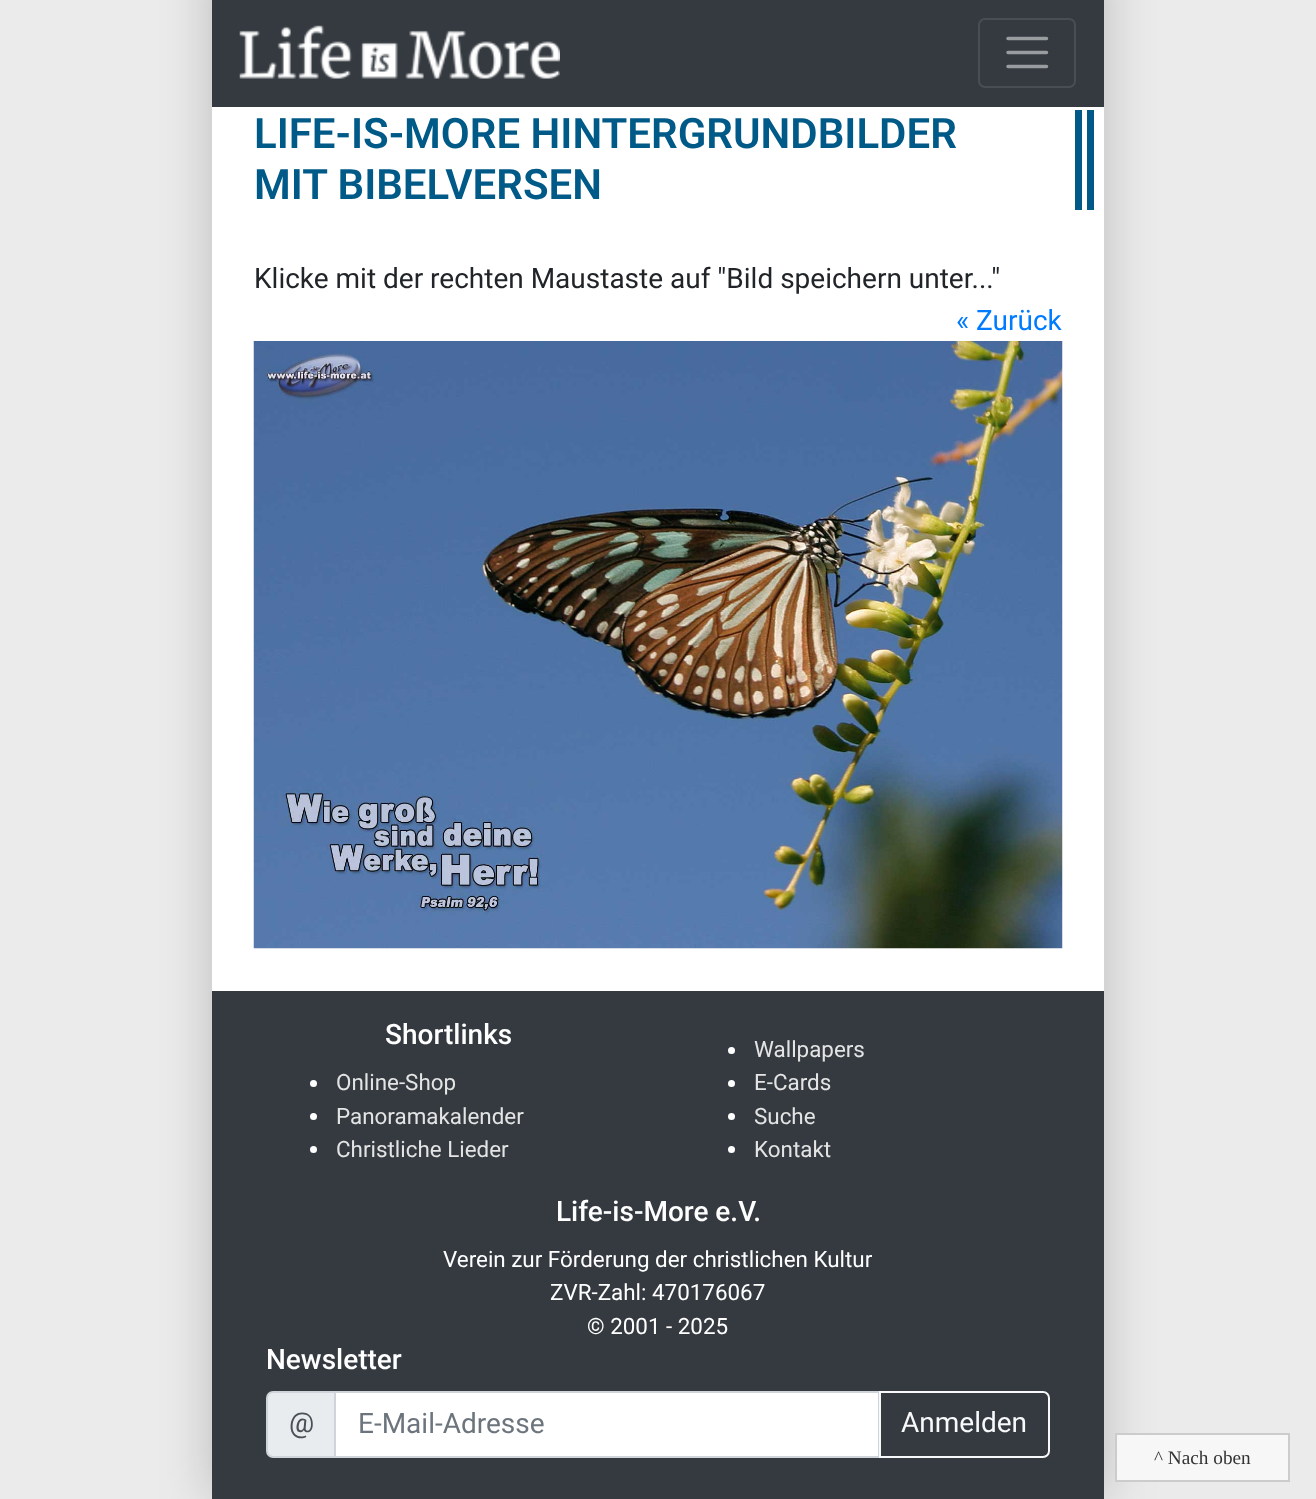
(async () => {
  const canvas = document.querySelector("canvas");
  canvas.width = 1316;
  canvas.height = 1499;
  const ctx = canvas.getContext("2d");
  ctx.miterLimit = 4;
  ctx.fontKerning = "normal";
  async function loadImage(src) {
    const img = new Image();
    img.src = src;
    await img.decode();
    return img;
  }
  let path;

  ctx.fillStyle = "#ebebeb";
  ctx.fillRect(0, 0, 1316, 1499);
  ctx.fillStyle = "rgba(0, 0, 0, 0.2)";
  ctx.filter = "blur(26px)";
  ctx.beginPath();
  ctx.rect(212, -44, 892, 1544);
  ctx.fill();
  ctx.filter = "none";
  ctx.fillStyle = "#ffffff";
  ctx.fillRect(212, 107, 892, 884);
  ctx.fillStyle = "#343a40";
  ctx.fillRect(212, 0, 892, 107);
  ctx.drawImage(await loadImage("img/1.png"), 239, 25, 321, 54);
  ctx.beginPath();
  ctx.roundRect(979, 19, 96, 68, 6);
  ctx.strokeStyle = "#484e53";
  ctx.lineWidth = 2;
  ctx.stroke();
  path = new Path2D("M1008 38.5H1046.5M1008 52.5H1046.5M1008 66.5H1046.5");
  ctx.strokeStyle = "#9a9da0";
  ctx.lineWidth = 3.5;
  ctx.lineCap = "round";
  ctx.stroke(path);
  ctx.fillStyle = "#005a88";
  ctx.fillRect(1087, 110, 7, 100);
  ctx.fillRect(1075, 110, 7, 100);
  ctx.drawImage(await loadImage("img/2.png"), 253, 341, 810, 608);
  ctx.fillStyle = "#343a40";
  ctx.fillRect(212, 991, 892, 508);
  ctx.fillStyle = "#ffffff";
  ctx.beginPath();
  ctx.arc(313.5, 1083.5, 3.5, 0, Math.PI * 2);
  ctx.fill();
  ctx.beginPath();
  ctx.arc(313.5, 1116.5, 3.5, 0, Math.PI * 2);
  ctx.fill();
  ctx.beginPath();
  ctx.arc(313.5, 1149.5, 3.5, 0, Math.PI * 2);
  ctx.fill();
  ctx.beginPath();
  ctx.arc(731.5, 1050.5, 3.5, 0, Math.PI * 2);
  ctx.fill();
  ctx.beginPath();
  ctx.arc(731.5, 1083.5, 3.5, 0, Math.PI * 2);
  ctx.fill();
  ctx.beginPath();
  ctx.arc(731.5, 1116.5, 3.5, 0, Math.PI * 2);
  ctx.fill();
  ctx.beginPath();
  ctx.arc(731.5, 1149.5, 3.5, 0, Math.PI * 2);
  ctx.fill();
  ctx.fillStyle = "#e9ecef";
  ctx.beginPath();
  ctx.roundRect(267, 1392, 68, 65, [6, 0, 0, 6]);
  ctx.fill();
  ctx.strokeStyle = "#ced4da";
  ctx.lineWidth = 2;
  ctx.stroke();
  ctx.fillStyle = "#ffffff";
  ctx.beginPath();
  ctx.rect(335, 1392, 544, 65);
  ctx.fill();
  ctx.stroke();
  ctx.beginPath();
  ctx.roundRect(880, 1392, 169, 65, [0, 6, 6, 0]);
  ctx.strokeStyle = "#f8f9fa";
  ctx.stroke();
  ctx.fillStyle = "#f7f7f7";
  ctx.beginPath();
  ctx.rect(1116, 1434, 173, 47);
  ctx.fill();
  ctx.strokeStyle = "#cccccc";
  ctx.stroke();
  ctx.font = "600 42px Roboto";
  ctx.fillStyle = "#005a88";
  ctx.fillText("LIFE-IS-MORE HINTERGRUNDBILDER", 254, 148);
  ctx.fillText("MIT BIBELVERSEN", 254, 199);
  ctx.font = "28px Roboto";
  ctx.fillStyle = "#212529";
  ctx.fillText("Klicke mit der rechten Maustaste auf \"Bild speichern unter...\"", 254, 288);
  ctx.fillStyle = "#007bff";
  ctx.fillText("« Zurück", 956, 330);
  ctx.font = "500 28px Roboto";
  ctx.fillStyle = "#ffffff";
  ctx.fillText("Shortlinks", 385, 1044);
  ctx.font = "22.4px Roboto";
  ctx.fillStyle = "#e4e4e4";
  for (const [text, x, y] of [
    ["Online-Shop", 336, 1090],
    ["Panoramakalender", 336, 1124],
    ["Christliche Lieder", 336, 1157],
    ["Wallpapers", 754, 1057],
    ["E-Cards", 754, 1090],
    ["Suche", 754, 1124],
    ["Kontakt", 754, 1157],
  ]) {
    ctx.fillText(text, x, y);
  }
  ctx.font = "500 28px Roboto";
  ctx.fillStyle = "#ffffff";
  ctx.fillText("Life-is-More e.V.", 556, 1221);
  ctx.font = "22.4px Roboto";
  for (const [text, x, y] of [
    ["Verein zur Förderung der christlichen Kultur", 443, 1267],
    ["ZVR-Zahl: 470176067", 550, 1300],
    ["© 2001 - 2025", 587, 1334],
  ]) {
    ctx.fillText(text, x, y);
  }
  ctx.font = "500 28px Roboto";
  ctx.fillText("Newsletter", 266, 1369);
  ctx.font = "28px Roboto";
  ctx.fillStyle = "#495057";
  ctx.fillText("@", 289, 1432);
  ctx.fillStyle = "#6c757d";
  ctx.fillText("E-Mail-Adresse", 358, 1433);
  ctx.fillStyle = "#f8f9fa";
  ctx.fillText("Anmelden", 901, 1432);
  ctx.font = "19.25px Liberation Serif";
  ctx.fillStyle = "#333333";
  ctx.fillText("^ Nach oben", 1154, 1464);
})();
